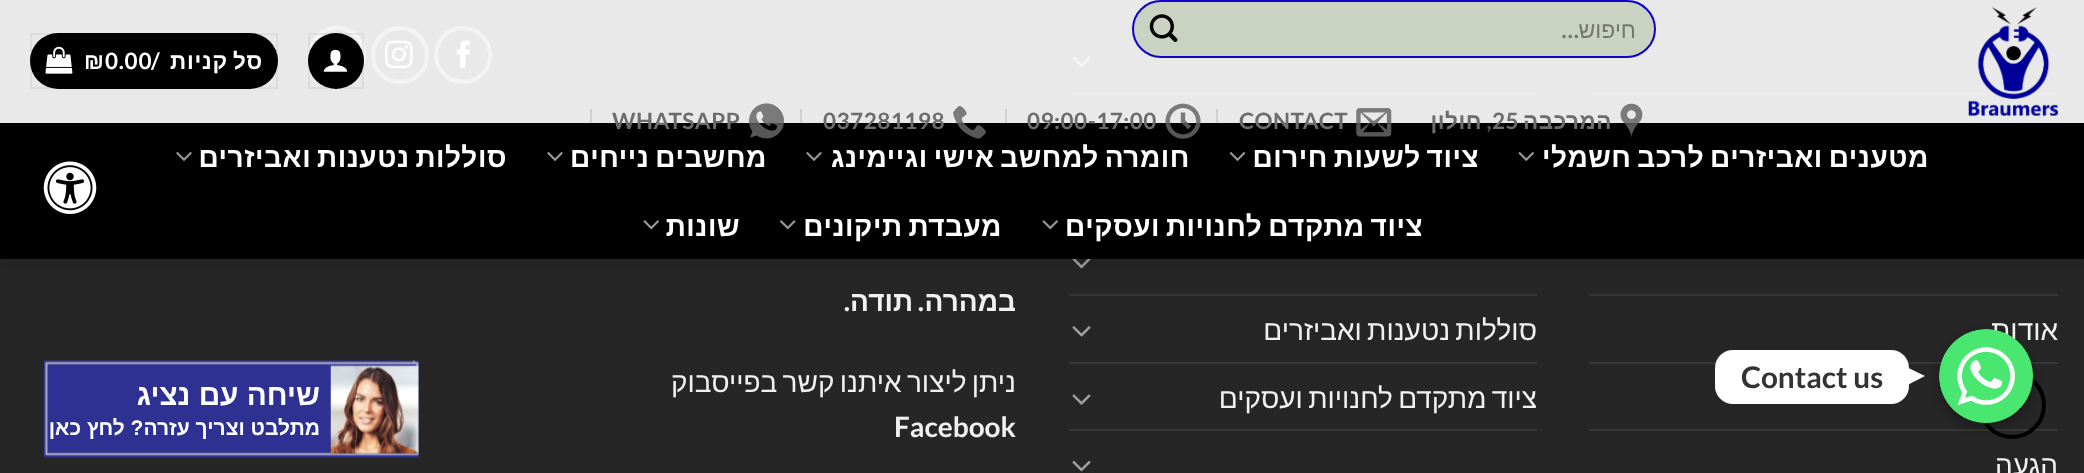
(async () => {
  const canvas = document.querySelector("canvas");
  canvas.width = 2084;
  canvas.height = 473;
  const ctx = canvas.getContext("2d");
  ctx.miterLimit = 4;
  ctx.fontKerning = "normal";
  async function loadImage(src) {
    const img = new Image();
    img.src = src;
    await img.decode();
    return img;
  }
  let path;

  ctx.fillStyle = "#262626";
  ctx.fillRect(0, 0, 2084, 473);
  ctx.beginPath();
  ctx.arc(463, 55, 27, 0, Math.PI * 2);
  ctx.strokeStyle = "#939393";
  ctx.lineWidth = 4;
  ctx.stroke();
  ctx.drawImage(await loadImage("img/15.png"), 456, 40, 14, 29);
  ctx.beginPath();
  ctx.arc(400, 55, 27, 0, Math.PI * 2);
  ctx.stroke();
  ctx.drawImage(await loadImage("img/16.png"), 385, 40, 28, 29);
  ctx.beginPath();
  ctx.arc(337, 55, 27, 0, Math.PI * 2);
  ctx.stroke();
  ctx.fillStyle = "#373737";
  ctx.fillRect(1589, 93, 469, 2);
  ctx.drawImage(await loadImage("img/17.png"), 1072, 56, 19, 12);
  ctx.fillRect(1069, 93, 468, 2);
  ctx.drawImage(await loadImage("img/18.png"), 1072, 259, 19, 10);
  ctx.save();
  ctx.beginPath();
  ctx.rect(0, 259, 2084, 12);
  ctx.clip();
  ctx.fillStyle = "rgba(0, 0, 0, 0.15)";
  ctx.filter = "blur(9px)";
  ctx.beginPath();
  ctx.rect(2, 2, 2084, 259);
  ctx.fill();
  ctx.filter = "none";
  ctx.restore();
  ctx.fillStyle = "rgba(255, 255, 255, 0.9)";
  ctx.fillRect(0, 0, 2084, 123);
  ctx.drawImage(await loadImage("img/1.png"), 1968, 7, 90, 109);
  ctx.fillStyle = "rgba(122, 156, 89, 0.28)";
  ctx.beginPath();
  ctx.roundRect(1133, 1, 522, 56, 28);
  ctx.fill();
  ctx.strokeStyle = "#1202c9";
  ctx.lineWidth = 2;
  ctx.stroke();
  ctx.drawImage(await loadImage("img/2.png"), 1149, 14, 29, 28);
  ctx.fillStyle = "#000000";
  ctx.fillRect(0, 123, 2084, 136);
  ctx.drawImage(await loadImage("img/3.png"), 1620, 103, 23, 35);
  ctx.drawImage(await loadImage("img/4.png"), 1356, 108, 36, 29);
  ctx.fillStyle = "rgba(0, 0, 0, 0.1)";
  ctx.fillRect(1216, 109, 2, 14);
  ctx.drawImage(await loadImage("img/5.png"), 1165, 103, 36, 36);
  ctx.fillRect(1005, 109, 2, 14);
  ctx.drawImage(await loadImage("img/6.png"), 953, 105, 33, 34);
  ctx.fillRect(800, 109, 2, 14);
  ctx.drawImage(await loadImage("img/7.png"), 749, 103, 35, 36);
  ctx.fillRect(590, 109, 2, 14);
  ctx.fillStyle = "#000000";
  ctx.beginPath();
  ctx.arc(336, 61, 28, 0, Math.PI * 2);
  ctx.fill();
  ctx.strokeStyle = "rgba(0, 0, 0, 0.05)";
  ctx.strokeRect(309, 34, 54, 54);
  ctx.drawImage(await loadImage("img/8.png"), 323, 49, 25, 23);
  ctx.beginPath();
  ctx.roundRect(30, 33, 248, 56, 28);
  ctx.fill();
  ctx.strokeRect(31, 34, 246, 54);
  ctx.drawImage(await loadImage("img/9.png"), 45, 46, 28, 28);
  ctx.fillStyle = "rgba(0, 0, 0, 0.1)";
  ctx.fillRect(615, 123, 1023, 2);
  ctx.drawImage(await loadImage("img/10.png"), 1518, 152, 16, 9);
  ctx.drawImage(await loadImage("img/11.png"), 1229, 152, 17, 9);
  ctx.drawImage(await loadImage("img/12.png"), 806, 152, 16, 9);
  ctx.drawImage(await loadImage("img/12.png"), 547, 152, 16, 9);
  ctx.drawImage(await loadImage("img/12.png"), 176, 152, 16, 9);
  ctx.drawImage(await loadImage("img/13.png"), 1042, 220, 16, 10);
  ctx.drawImage(await loadImage("img/14.png"), 780, 220, 16, 10);
  ctx.drawImage(await loadImage("img/13.png"), 643, 220, 16, 10);
  for (const [x, y, w, h, color] of [
    [1589, 294, 469, 2, "#373737"],
    [1589, 362, 469, 2, "#373737"],
    [1589, 429, 469, 2, "#373737"],
    [1069, 294, 468, 2, "#373737"],
  ]) {
    ctx.fillStyle = color;
    ctx.fillRect(x, y, w, h);
  }
  ctx.drawImage(await loadImage("img/19.png"), 1072, 326, 19, 11);
  ctx.fillRect(1069, 362, 468, 2);
  ctx.drawImage(await loadImage("img/20.png"), 1072, 394, 19, 11);
  ctx.fillRect(1069, 429, 468, 2);
  ctx.drawImage(await loadImage("img/21.png"), 1072, 460, 19, 12);
  ctx.beginPath();
  ctx.arc(2012, 405, 32, 0, Math.PI * 2);
  ctx.strokeStyle = "#000000";
  ctx.lineWidth = 4;
  ctx.stroke();
  ctx.drawImage(await loadImage("img/22.png"), 2018, 407, 4, 4);
  ctx.drawImage(await loadImage("img/23.png"), 43, 161, 54, 53);
  ctx.fillStyle = "rgba(0, 0, 0, 0.25)";
  ctx.filter = "blur(5px)";
  ctx.beginPath();
  ctx.roundRect(1939, 334, 95, 95, 47.5);
  ctx.fill();
  ctx.filter = "none";
  ctx.fillStyle = "#ffffff";
  ctx.beginPath();
  ctx.roundRect(1715, 350, 194, 54, 18);
  ctx.fill();
  path = new Path2D("M1907.5 385V367.5L1925 376Z");
  ctx.fill(path);
  ctx.drawImage(await loadImage("img/25.png"), 43, 360, 376, 98);
  ctx.drawImage(await loadImage("img/26.png"), 330, 365, 89, 89);
  ctx.direction = "rtl";
  ctx.font = "23px Liberation Sans";
  ctx.fillStyle = "#757575";
  ctx.fillText("חיפוש", 1636, 38);
  ctx.font = "bold 23px Lato";
  ctx.fillText("…", 1579, 38);
  ctx.letterSpacing = "0.5px";
  ctx.font = "bold 22.5px Liberation Sans";
  ctx.fillStyle = "#6c6c6c";
  ctx.fillText("המרכבה", 1612, 129);
  ctx.direction = "ltr";
  ctx.font = "bold 22.5px Lato";
  ctx.fillText("25", 1492, 129);
  ctx.direction = "rtl";
  ctx.fillStyle = "#575757";
  ctx.fillText(",", 1492, 129);
  ctx.font = "bold 22.5px Liberation Sans";
  ctx.fillStyle = "#6c6c6c";
  ctx.fillText("חולון", 1482, 129);
  ctx.direction = "ltr";
  ctx.font = "bold 22.5px Lato";
  for (const [text, x, y] of [
    ["CONTACT", 1239, 129],
    ["09:00-17:00", 1027, 129],
    ["037281198", 823, 129],
    ["WHATSAPP", 612, 129],
  ]) {
    ctx.fillText(text, x, y);
  }
  ctx.letterSpacing = "0.75px";
  ctx.wordSpacing = "-2px";
  ctx.direction = "rtl";
  ctx.font = "bold 22.5px Liberation Sans";
  ctx.fillStyle = "#ffffff";
  ctx.fillText("סל קניות", 263, 69);
  ctx.wordSpacing = "0px";
  ctx.direction = "ltr";
  ctx.font = "bold 22.5px Lato";
  ctx.fillText("/", 151, 69);
  ctx.fillText("0.00", 105, 69);
  ctx.font = "bold 22.5px Liberation Sans";
  ctx.fillText("₪", 84, 69);
  ctx.letterSpacing = "0.55px";
  ctx.wordSpacing = "-2.5px";
  ctx.direction = "rtl";
  ctx.font = "bold 28px Liberation Sans";
  for (const [text, x, y] of [
    ["מטענים ואביזרים לרכב חשמלי", 1929, 167],
    ["ציוד לשעות חירום", 1479, 167],
    ["חומרה למחשב אישי וגיימינג", 1190, 167],
    ["מחשבים נייחים", 767, 167],
    ["סוללות נטענות ואביזרים", 507, 167],
    ["ציוד מתקדם לחנויות ועסקים", 1423, 236],
    ["מעבדת תיקונים", 1002, 236],
  ]) {
    ctx.fillText(text, x, y);
  }
  ctx.wordSpacing = "0px";
  ctx.fillText("שונות", 740, 236);
  ctx.letterSpacing = "0px";
  ctx.font = "28px Liberation Sans";
  ctx.fillStyle = "#f1f1f1";
  ctx.fillText("אודות", 2058, 340);
  ctx.fillText("הגעה", 2058, 475);
  ctx.wordSpacing = "-2.5px";
  ctx.fillText("סוללות נטענות ואביזרים", 1537, 340);
  ctx.fillText("ציוד מתקדם לחנויות ועסקים", 1537, 408);
  ctx.wordSpacing = "0px";
  ctx.font = "bold 28px Liberation Sans";
  ctx.fillText("במהרה", 1016, 311);
  ctx.font = "bold 28px Lato";
  ctx.fillText(".", 924, 311);
  ctx.font = "bold 28px Liberation Sans";
  ctx.fillText("תודה", 913, 311);
  ctx.font = "bold 28px Lato";
  ctx.fillText(".", 850, 311);
  ctx.wordSpacing = "-2.5px";
  ctx.font = "28px Liberation Sans";
  ctx.fillText("ניתן ליצור איתנו קשר בפייסבוק", 1016, 392);
  ctx.wordSpacing = "0px";
  ctx.direction = "ltr";
  ctx.font = "bold 28px Lato";
  ctx.fillText("Facebook", 894, 437);
  ctx.drawImage(await loadImage("img/24.png"), 1939, 329, 94, 94);
  ctx.font = "bold 29.75px Lato";
  ctx.fillStyle = "#333333";
  ctx.fillText("Contact us", 1741, 388);
  ctx.direction = "rtl";
  ctx.font = "bold 29.75px Liberation Sans";
  ctx.fillStyle = "#ffffff";
  ctx.fillText("שיחה עם נציג", 320, 405);
  ctx.font = "bold 21px Liberation Sans";
  ctx.fillText("מתלבט וצריך עזרה? לחץ כאן", 320, 435);
})();
